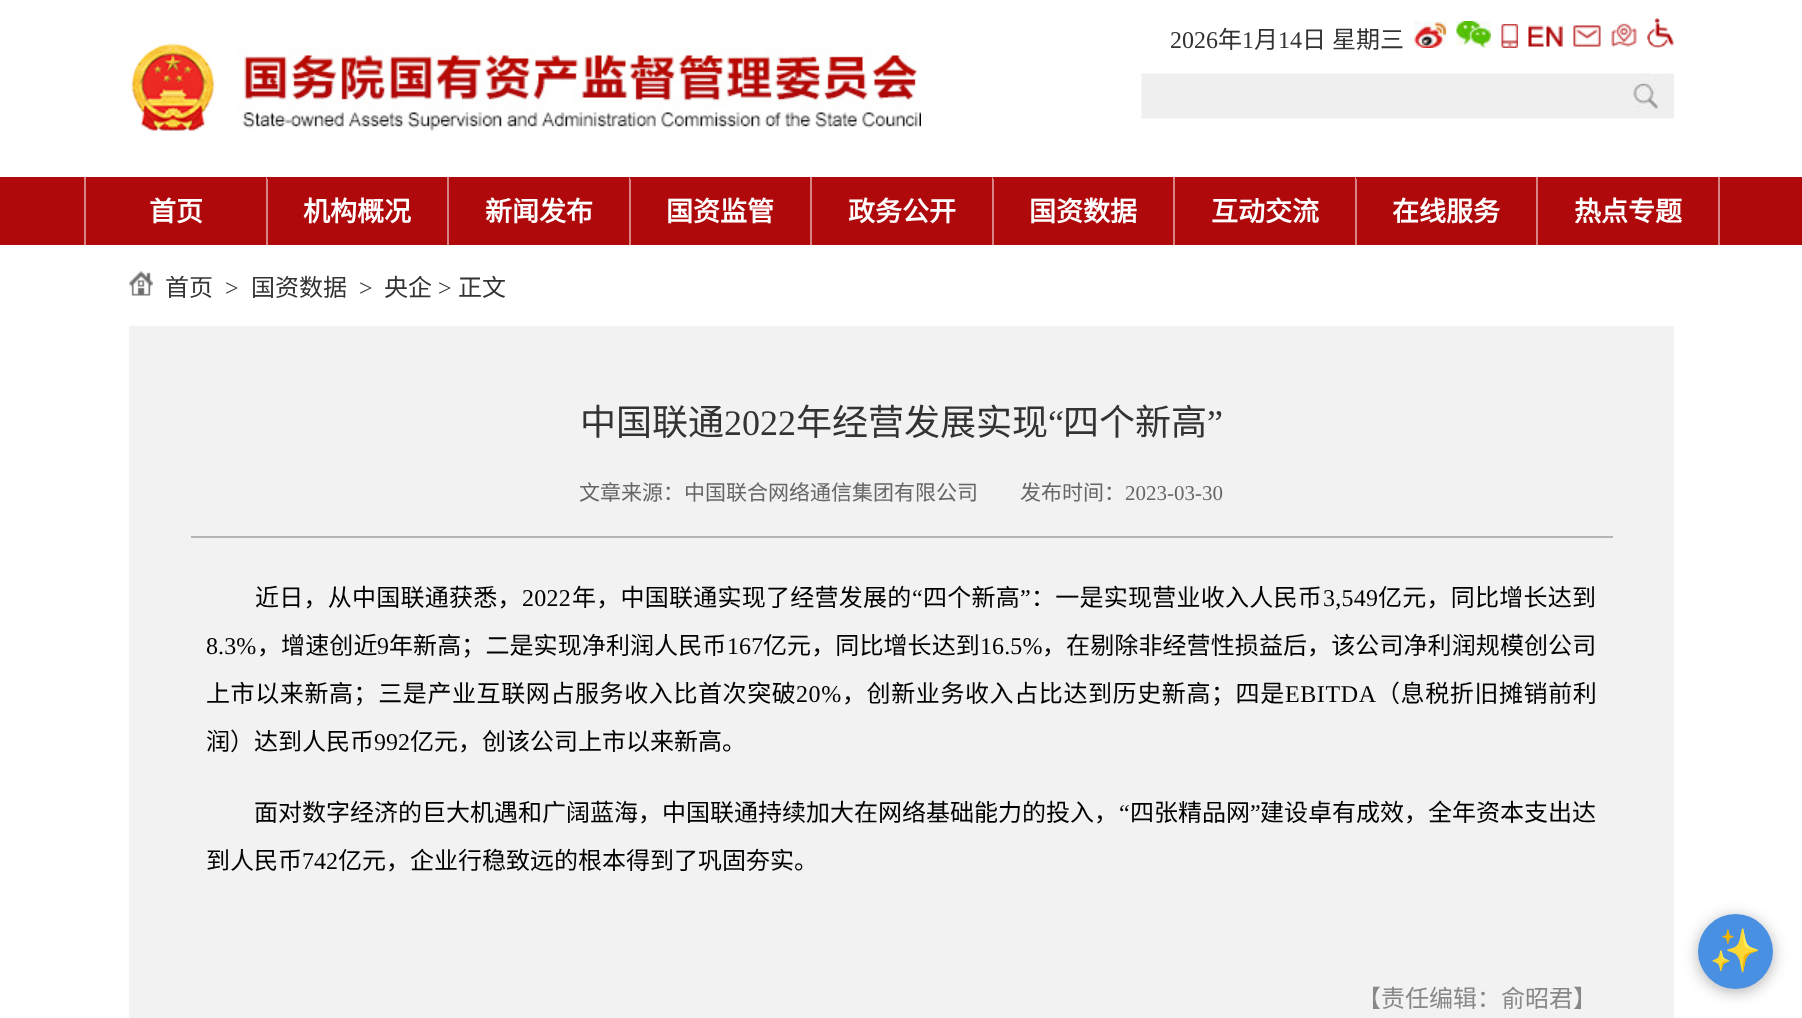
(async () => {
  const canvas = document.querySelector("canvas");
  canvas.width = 1802;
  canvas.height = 1018;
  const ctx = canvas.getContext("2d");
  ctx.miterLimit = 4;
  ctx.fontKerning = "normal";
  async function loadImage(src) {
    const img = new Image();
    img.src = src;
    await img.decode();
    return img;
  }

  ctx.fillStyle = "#ffffff";
  ctx.fillRect(0, 0, 1802, 1018);
  ctx.drawImage(await loadImage("img/1.png"), 131, 38, 790, 137);
  ctx.drawImage(await loadImage("img/2.png"), 1414, 21, 32, 27);
  ctx.drawImage(await loadImage("img/3.png"), 1456, 21, 35, 27);
  ctx.drawImage(await loadImage("img/4.png"), 1501, 24, 17, 24);
  ctx.drawImage(await loadImage("img/5.png"), 1528, 25, 35, 22);
  ctx.drawImage(await loadImage("img/6.png"), 1573, 25, 28, 22);
  ctx.drawImage(await loadImage("img/7.png"), 1611, 23, 26, 24);
  ctx.drawImage(await loadImage("img/8.png"), 1647, 18, 27, 30);
  ctx.drawImage(await loadImage("img/9.png"), 1141, 73, 533, 46);
  for (const [x, y, w, h, color] of [
    [0, 177, 1802, 68, "#af090b"],
    [266, 177, 2, 68, "#d68584"],
    [84, 177, 2, 68, "#d68584"],
    [447, 177, 2, 68, "#d68584"],
    [267, 177, 1, 2, "#af090b"],
    [629, 177, 2, 68, "#d68584"],
    [810, 177, 2, 68, "#d68584"],
    [630, 177, 1, 2, "#af090b"],
    [992, 177, 2, 68, "#d68584"],
    [1173, 177, 2, 68, "#d68584"],
    [993, 177, 1, 2, "#af090b"],
    [1355, 177, 2, 68, "#d68584"],
    [1536, 177, 2, 68, "#d68584"],
    [1356, 177, 1, 2, "#af090b"],
    [1718, 177, 2, 68, "#d68584"],
  ]) {
    ctx.fillStyle = color;
    ctx.fillRect(x, y, w, h);
  }
  ctx.drawImage(await loadImage("img/10.png"), 129, 271, 24, 25);
  ctx.fillStyle = "#f2f2f2";
  ctx.fillRect(129, 326, 1545, 692);
  ctx.fillStyle = "#b5b5b5";
  ctx.fillRect(191, 536, 1422, 2);
  ctx.fillStyle = "rgba(0, 0, 0, 0.3)";
  ctx.filter = "blur(7.5px)";
  ctx.beginPath();
  ctx.roundRect(1698, 917, 75, 75, 37.5);
  ctx.fill();
  ctx.filter = "none";
  ctx.fillStyle = "#4a90e2";
  ctx.beginPath();
  ctx.arc(1735.5, 951.5, 37.5, 0, Math.PI * 2);
  ctx.fill();
  ctx.font = "24px Liberation Serif";
  ctx.fillStyle = "#333333";
  ctx.fillText("2026", 1170, 48);
  ctx.font = "24px Noto Sans CJK SC";
  ctx.fillText("年", 1218, 48);
  ctx.font = "24px Liberation Serif";
  ctx.fillText("1", 1242, 48);
  ctx.font = "24px Noto Sans CJK SC";
  ctx.fillText("月", 1254, 48);
  ctx.font = "24px Liberation Serif";
  ctx.fillText("14", 1278, 48);
  ctx.font = "24px Noto Sans CJK SC";
  ctx.fillText("日", 1302, 48);
  ctx.fillText("星期三", 1332, 48);
  ctx.font = "bold 27px Noto Sans CJK SC";
  ctx.fillStyle = "#ffffff";
  for (const [text, x, y] of [
    ["首页", 149, 221],
    ["机构概况", 303, 221],
    ["新闻发布", 485, 221],
    ["国资监管", 666, 221],
    ["政务公开", 848, 221],
    ["国资数据", 1029, 221],
    ["互动交流", 1211, 221],
    ["在线服务", 1392, 221],
    ["热点专题", 1574, 221],
  ]) {
    ctx.fillText(text, x, y);
  }
  ctx.font = "24px Noto Sans CJK SC";
  ctx.fillStyle = "#333333";
  ctx.fillText("首页", 165, 296);
  ctx.font = "24px Liberation Serif";
  ctx.fillText(">", 225, 296);
  ctx.font = "24px Noto Sans CJK SC";
  ctx.fillText("国资数据", 251, 296);
  ctx.font = "24px Liberation Serif";
  ctx.fillText(">", 359, 296);
  ctx.font = "24px Noto Sans CJK SC";
  ctx.fillText("央企", 384, 296);
  ctx.font = "24px Liberation Serif";
  ctx.fillText(">", 438, 296);
  ctx.font = "24px Noto Sans CJK SC";
  ctx.fillText("正文", 458, 296);
  ctx.font = "36px Noto Sans CJK SC";
  ctx.fillText("中国联通", 580, 435);
  ctx.font = "36px Liberation Serif";
  ctx.fillText("2022", 724, 435);
  ctx.font = "36px Noto Sans CJK SC";
  ctx.fillText("年经营发展实现", 796, 435);
  ctx.font = "36px Liberation Serif";
  ctx.fillText("“", 1048, 435);
  ctx.font = "36px Noto Sans CJK SC";
  ctx.fillText("四个新高", 1063, 435);
  ctx.font = "36px Liberation Serif";
  ctx.fillText("”", 1207, 435);
  ctx.font = "21px Noto Sans CJK SC";
  ctx.fillStyle = "#666666";
  ctx.fillText("文章来源：中国联合网络通信集团有限公司　　发布时间：", 579, 500);
  ctx.font = "21px Liberation Serif";
  ctx.fillText("2023-03-30", 1125, 500);
  ctx.letterSpacing = "0.25px";
  ctx.font = "24px Noto Sans CJK SC";
  ctx.fillStyle = "#000000";
  ctx.fillText("近日，从中国联通获悉，", 255, 606);
  ctx.font = "24px Liberation Serif";
  ctx.fillText("2022", 522, 606);
  ctx.font = "24px Noto Sans CJK SC";
  ctx.fillText("年，中国联通实现了经营发展的", 572, 606);
  ctx.font = "24px Liberation Serif";
  ctx.fillText("“", 912, 606);
  ctx.font = "24px Noto Sans CJK SC";
  ctx.fillText("四个新高", 923, 606);
  ctx.font = "24px Liberation Serif";
  ctx.fillText("”", 1020, 606);
  ctx.font = "24px Noto Sans CJK SC";
  ctx.fillText("：一是实现营业收入人民币", 1031, 606);
  ctx.font = "24px Liberation Serif";
  ctx.fillText("3,549", 1323, 606);
  ctx.font = "24px Noto Sans CJK SC";
  ctx.fillText("亿元，同比增长达到", 1378, 606);
  ctx.letterSpacing = "0.1px";
  ctx.font = "24px Liberation Serif";
  ctx.fillText("8.3%", 206, 654);
  ctx.font = "24px Noto Sans CJK SC";
  ctx.fillText("，增速创近", 257, 654);
  ctx.font = "24px Liberation Serif";
  ctx.fillText("9", 377, 654);
  ctx.font = "24px Noto Sans CJK SC";
  ctx.fillText("年新高；二是实现净利润人民币", 389, 654);
  ctx.font = "24px Liberation Serif";
  ctx.fillText("167", 727, 654);
  ctx.font = "24px Noto Sans CJK SC";
  ctx.fillText("亿元，同比增长达到", 763, 654);
  ctx.font = "24px Liberation Serif";
  ctx.fillText("16.5%", 980, 654);
  ctx.font = "24px Noto Sans CJK SC";
  ctx.fillText("，在剔除非经营性损益后，该公司净利润规模创公司", 1042, 654);
  ctx.letterSpacing = "0.6px";
  ctx.fillText("上市以来新高；三是产业互联网占服务收入比首次突破", 206, 702);
  ctx.font = "24px Liberation Serif";
  ctx.fillText("20%", 796, 702);
  ctx.font = "24px Noto Sans CJK SC";
  ctx.fillText("，创新业务收入占比达到历史新高；四是", 842, 702);
  ctx.font = "24px Liberation Serif";
  ctx.fillText("EBITDA", 1285, 702);
  ctx.font = "24px Noto Sans CJK SC";
  ctx.fillText("（息税折旧摊销前利", 1376, 702);
  ctx.letterSpacing = "0px";
  ctx.fillText("润）达到人民币", 206, 750);
  ctx.font = "24px Liberation Serif";
  ctx.fillText("992", 374, 750);
  ctx.font = "24px Noto Sans CJK SC";
  ctx.fillText("亿元，创该公司上市以来新高。", 410, 750);
  ctx.fillText("面对数字经济的巨大机遇和广阔蓝海，中国联通持续加大在网络基础能力的投入，", 254, 821);
  ctx.font = "24px Liberation Serif";
  ctx.fillText("“", 1119, 821);
  ctx.font = "24px Noto Sans CJK SC";
  ctx.fillText("四张精品网", 1130, 821);
  ctx.font = "24px Liberation Serif";
  ctx.fillText("”", 1250, 821);
  ctx.font = "24px Noto Sans CJK SC";
  ctx.fillText("建设卓有成效，全年资本支出达", 1260, 821);
  ctx.fillText("到人民币", 206, 869);
  ctx.font = "24px Liberation Serif";
  ctx.fillText("742", 302, 869);
  ctx.font = "24px Noto Sans CJK SC";
  ctx.fillText("亿元，企业行稳致远的根本得到了巩固夯实。", 338, 869);
  ctx.fillStyle = "#888888";
  ctx.fillText("【责任编辑：俞昭君】", 1357, 1007);
  ctx.font = "42px Noto Color Emoji";
  ctx.fillStyle = "#333333";
  ctx.fillText("✨", 1709, 965);
})();
